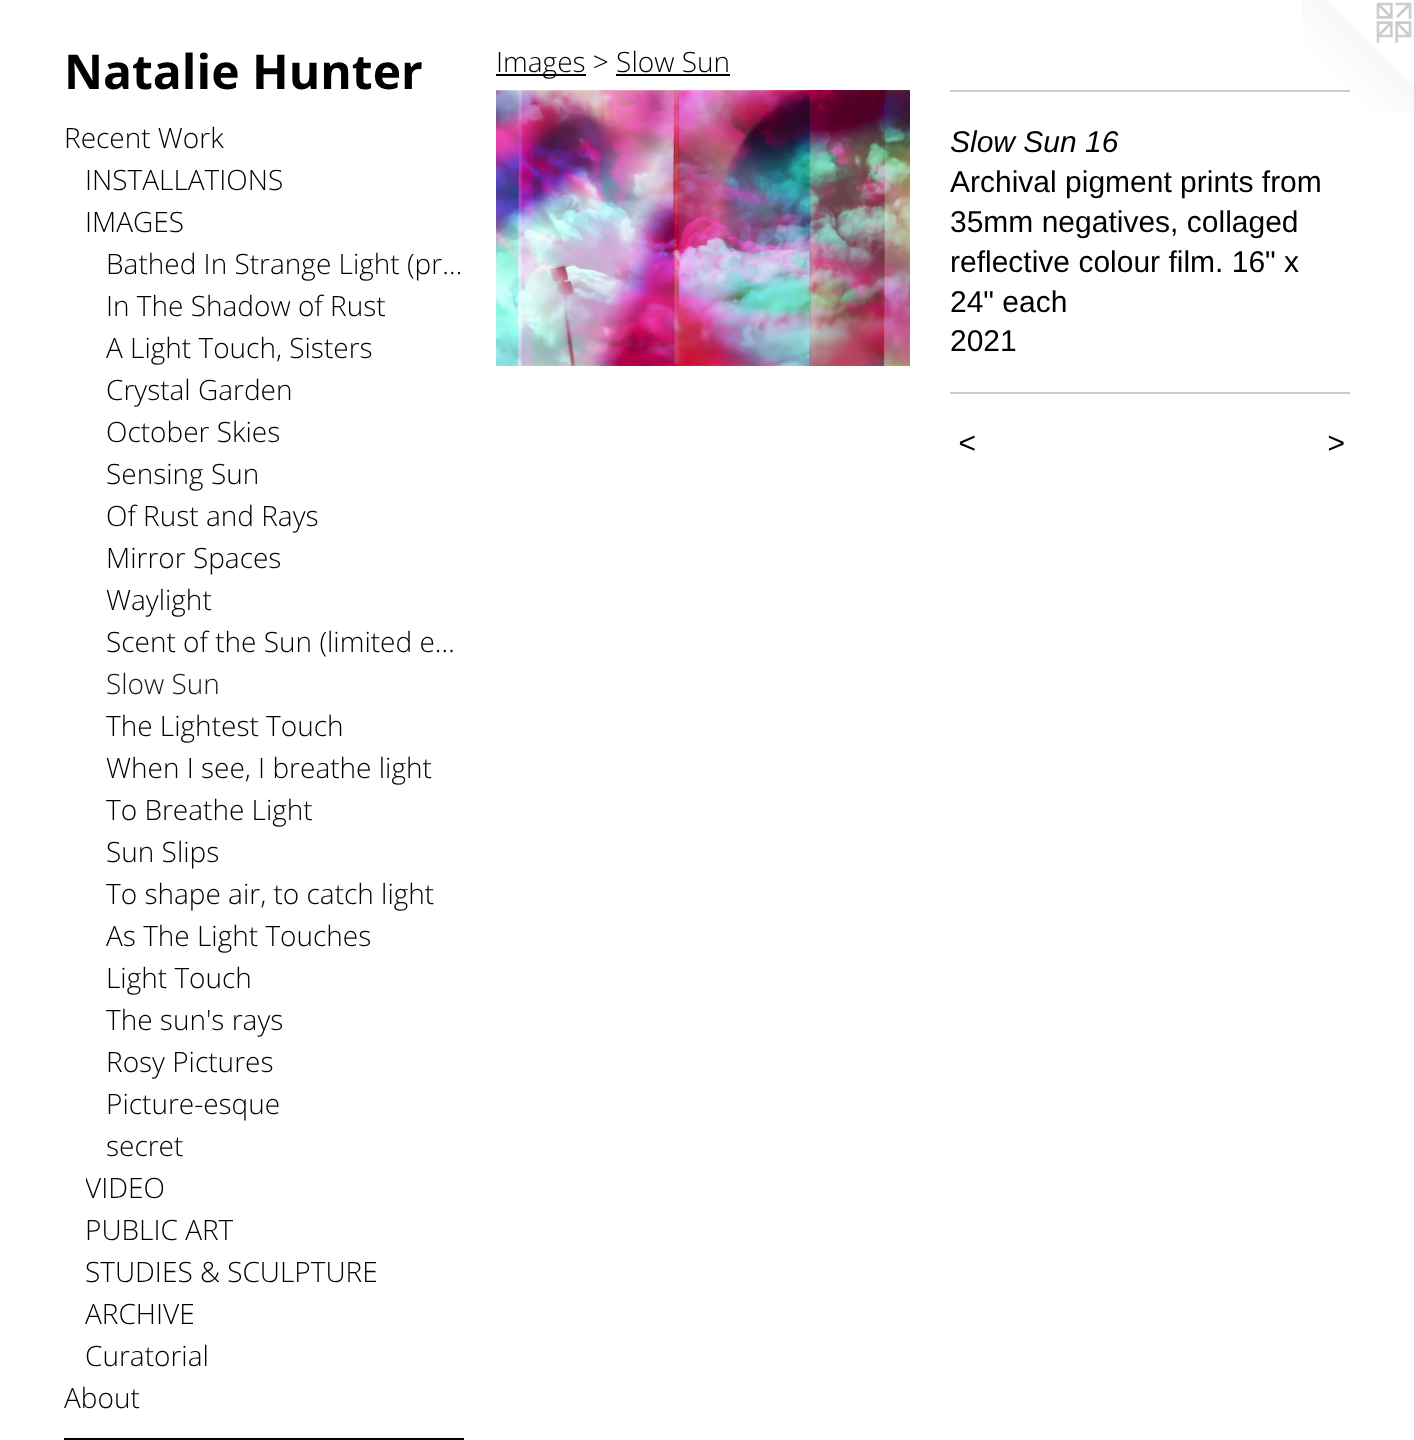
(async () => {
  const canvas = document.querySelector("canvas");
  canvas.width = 1414;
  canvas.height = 1440;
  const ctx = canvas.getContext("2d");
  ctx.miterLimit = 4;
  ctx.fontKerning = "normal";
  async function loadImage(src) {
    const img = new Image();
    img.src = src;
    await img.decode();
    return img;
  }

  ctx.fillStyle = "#ffffff";
  ctx.fillRect(0, 0, 1414, 1440);
  for (const [x, y, w, h, color] of [
    [64, 1438, 400, 2, "#000000"],
    [496, 74, 90, 2, "#000000"],
    [616, 74, 114, 2, "#000000"],
  ]) {
    ctx.fillStyle = color;
    ctx.fillRect(x, y, w, h);
  }
  ctx.drawImage(await loadImage("img/1.png"), 496, 90, 414, 276);
  ctx.drawImage(await loadImage("img/2.png"), 1302, 0, 112, 112);
  ctx.fillStyle = "#cccccc";
  ctx.fillRect(950, 90, 400, 2);
  ctx.fillRect(950, 392, 400, 2);
  ctx.font = "bold 48px Open Sans";
  ctx.fillStyle = "#000000";
  ctx.fillText("Natalie Hunter", 64, 89);
  ctx.font = "300 28px Open Sans";
  for (const [text, x, y] of [
    ["Recent Work", 64, 148],
    ["INSTALLATIONS", 85, 190],
    ["IMAGES", 85, 232],
    ["Bathed In Strange Light (pr…", 106, 274],
    ["In The Shadow of Rust", 106, 316],
    ["A Light Touch, Sisters", 106, 358],
    ["Crystal Garden", 106, 400],
    ["October Skies", 106, 442],
    ["Sensing Sun", 106, 484],
    ["Of Rust and Rays", 106, 526],
    ["Mirror Spaces", 106, 568],
    ["Waylight", 106, 610],
    ["Scent of the Sun (limited e…", 106, 652],
  ]) {
    ctx.fillText(text, x, y);
  }
  ctx.fillStyle = "#1a1a1a";
  ctx.fillText("Slow Sun", 106, 694);
  ctx.fillStyle = "#000000";
  for (const [text, x, y] of [
    ["The Lightest Touch", 106, 736],
    ["When I see, I breathe light", 106, 778],
    ["To Breathe Light", 106, 820],
    ["Sun Slips", 106, 862],
    ["To shape air, to catch light", 106, 904],
    ["As The Light Touches", 106, 946],
    ["Light Touch", 106, 988],
    ["The sun's rays", 106, 1030],
    ["Rosy Pictures", 106, 1072],
    ["Picture-esque", 106, 1114],
    ["secret", 106, 1156],
  ]) {
    ctx.fillText(text, x, y);
  }
  ctx.save();
  ctx.beginPath();
  ctx.rect(86, 1166, 378, 42);
  ctx.clip();
  ctx.fillText("VIDEO", 85, 1198);
  ctx.restore();
  for (const [text, x, y] of [
    ["PUBLIC ART", 85, 1240],
    ["STUDIES & SCULPTURE", 85, 1282],
    ["ARCHIVE", 85, 1324],
    ["Curatorial", 85, 1366],
    ["About", 64, 1408],
    ["Images > Slow Sun", 496, 72],
  ]) {
    ctx.fillText(text, x, y);
  }
  ctx.font = "italic 30px Liberation Sans";
  ctx.fillText("Slow Sun 16", 950, 152);
  ctx.font = "30px Liberation Sans";
  for (const [text, x, y] of [
    ["Archival pigment prints from", 950, 192],
    ["35mm negatives, collaged", 950, 232],
    ["reflective colour film. 16\" x", 950, 272],
    ["24\" each", 950, 312],
    ["2021", 950, 351],
  ]) {
    ctx.fillText(text, x, y);
  }
  ctx.letterSpacing = "2px";
  ctx.font = "italic 30px Liberation Sans";
  ctx.fillText("<", 958, 453);
  ctx.fillText(">", 1327, 453);
})();
